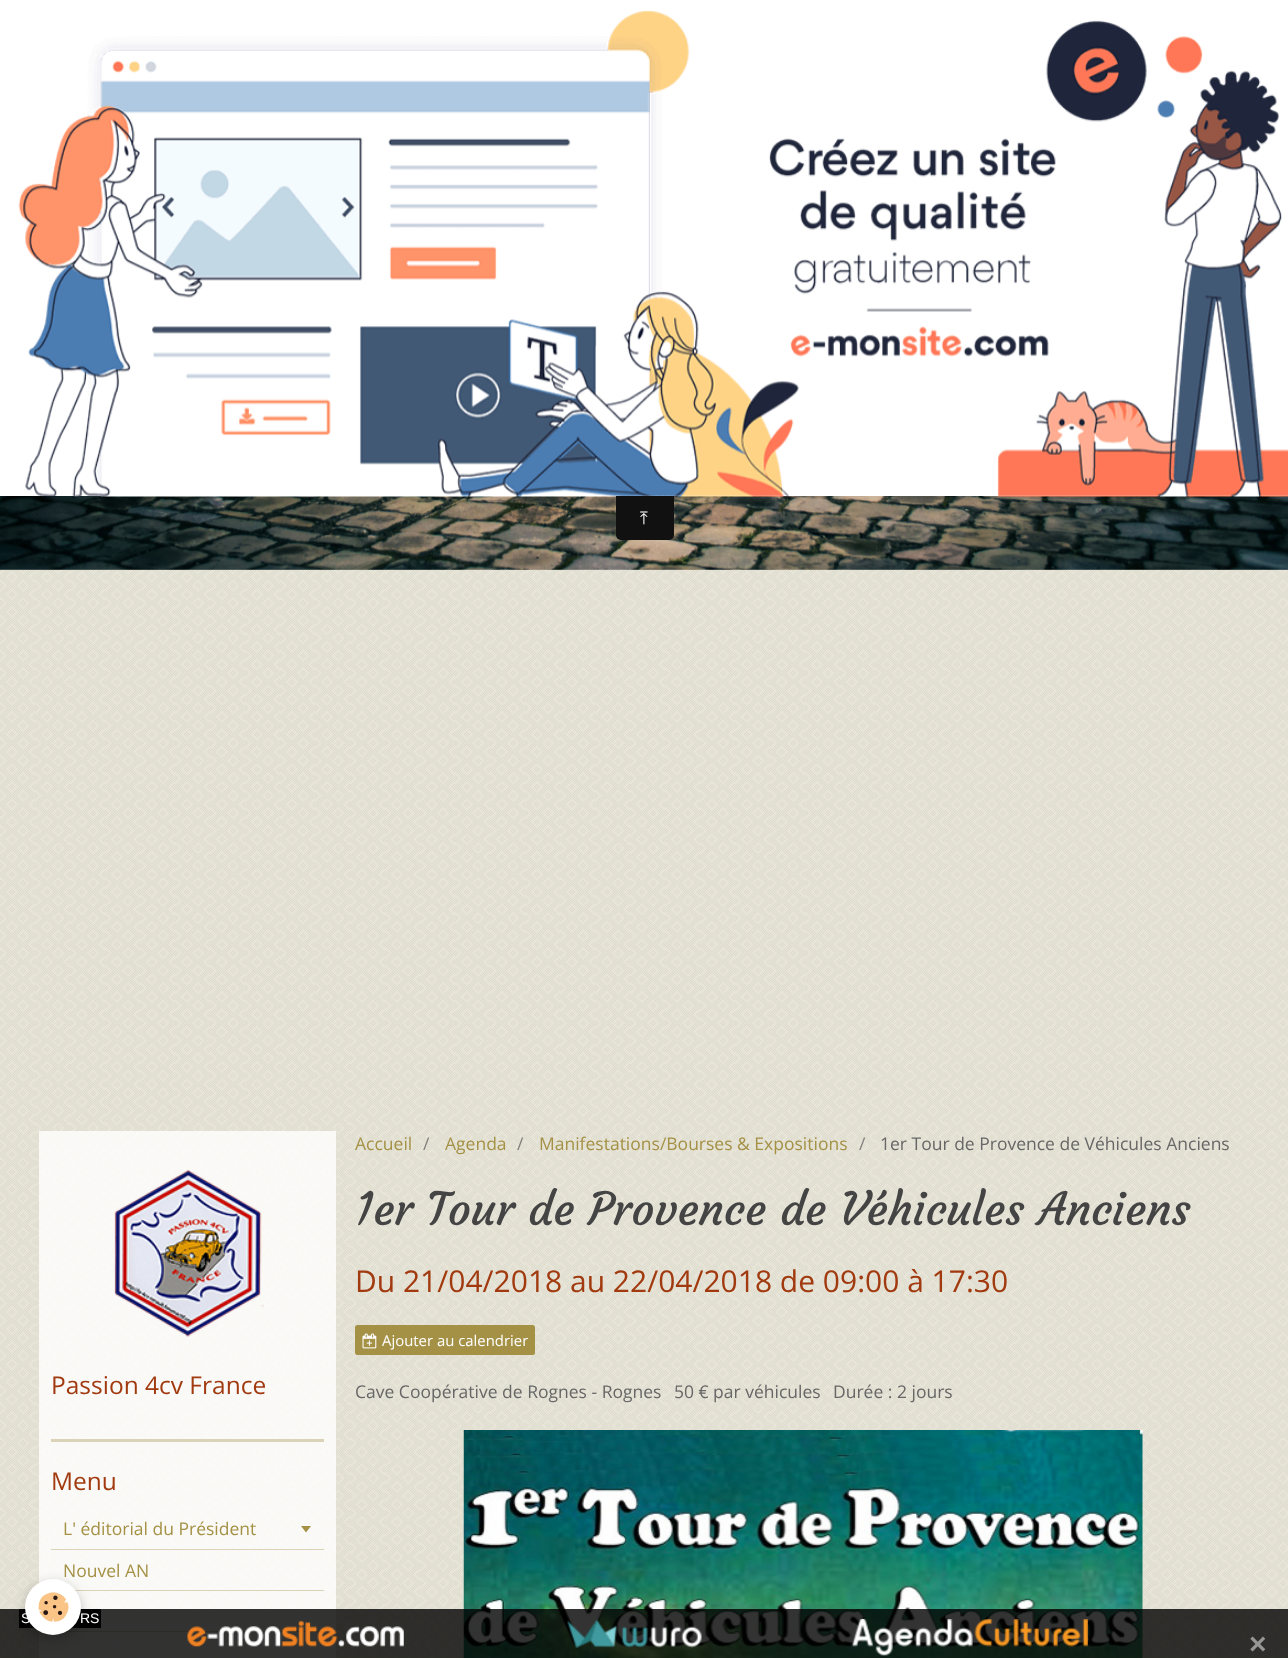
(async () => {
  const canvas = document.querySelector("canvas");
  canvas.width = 1288;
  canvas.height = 1658;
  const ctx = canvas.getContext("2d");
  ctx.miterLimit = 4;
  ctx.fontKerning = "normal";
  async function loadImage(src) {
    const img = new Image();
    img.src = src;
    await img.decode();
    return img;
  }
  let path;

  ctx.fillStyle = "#efecdf";
  ctx.fillRect(0, 0, 1288, 1658);
  ctx.drawImage(await loadImage("img/1.png"), 0, 569, 1288, 1089);
  ctx.drawImage(await loadImage("img/2.png"), 0, 496, 1288, 74);
  ctx.fillStyle = "#ffffff";
  ctx.fillRect(0, 0, 1288, 496);
  ctx.drawImage(await loadImage("img/3.png"), 18, 11, 1270, 486);
  ctx.fillStyle = "#111111";
  ctx.beginPath();
  ctx.roundRect(616, 496, 58, 44, [0, 0, 5, 5]);
  ctx.fill();
  ctx.fillStyle = "#a49145";
  ctx.beginPath();
  ctx.roundRect(355, 1325, 180, 30, 2.5);
  ctx.fill();
  ctx.drawImage(await loadImage("img/4.png"), 362, 1333, 15, 16);
  ctx.drawImage(await loadImage("img/5.png"), 463, 1430, 680, 228);
  ctx.fillStyle = "rgba(255, 255, 255, 0.8)";
  ctx.fillRect(39, 1131, 297, 527);
  ctx.drawImage(await loadImage("img/6.png"), 114, 1169, 150, 168);
  ctx.fillStyle = "#dbd3b5";
  ctx.fillRect(51, 1439, 273, 3);
  ctx.fillRect(51, 1549, 273, 1);
  ctx.fillStyle = "#a49145";
  path = new Path2D("M301 1526H311L306 1532.5Z");
  ctx.fill(path);
  for (const [x, y, w, h, color] of [
    [75, 1590, 249, 1, "#dbd3b5"],
    [65, 1631, 259, 1, "#dbd3b5"],
    [0, 1609, 1288, 49, "rgba(0, 0, 0, 0.8)"],
    [19, 1609, 82, 19, "#000000"],
  ]) {
    ctx.fillStyle = color;
    ctx.fillRect(x, y, w, h);
  }
  ctx.fillStyle = "rgba(0, 0, 0, 0.24)";
  ctx.filter = "blur(6px)";
  ctx.beginPath();
  ctx.roundRect(25, 1583, 56, 56, 28);
  ctx.fill();
  ctx.filter = "none";
  ctx.fillStyle = "#ffffff";
  ctx.beginPath();
  ctx.arc(53, 1607, 28, 0, Math.PI * 2);
  ctx.fill();
  ctx.drawImage(await loadImage("img/7.png"), 38, 1592, 31, 30);
  ctx.drawImage(await loadImage("img/8.png"), 187, 1621, 217, 26);
  ctx.drawImage(await loadImage("img/9.png"), 567, 1619, 135, 29);
  ctx.drawImage(await loadImage("img/10.png"), 851, 1619, 237, 37);
  ctx.font = "17.5px FreeSerif";
  ctx.fillText("⤒", 640, 524);
  ctx.font = "17.5px Open Sans";
  ctx.fillStyle = "#a49145";
  ctx.fillText("Accueil", 355, 1150);
  ctx.fillStyle = "#807f7d";
  ctx.fillText("/", 423, 1150);
  ctx.fillStyle = "#a49145";
  ctx.fillText("Agenda", 445, 1150);
  ctx.fillStyle = "#807f7d";
  ctx.fillText("/", 517, 1150);
  ctx.fillStyle = "#a49145";
  ctx.fillText("Manifestations/Bourses & Expositions", 539, 1150);
  ctx.fillStyle = "#807f7d";
  ctx.fillText("/", 859, 1150);
  ctx.fillStyle = "#676767";
  ctx.fillText("1er Tour de Provence de Véhicules Anciens", 880, 1150);
  ctx.font = "45px Courgette";
  ctx.fillStyle = "#444444";
  ctx.fillText("1er Tour de Provence de Véhicules Anciens", 355, 1225);
  ctx.font = "30px Open Sans";
  ctx.fillStyle = "#a13a0f";
  ctx.fillText("Du 21/04/2018 au 22/04/2018 de 09:00 à 17:30", 355, 1292);
  ctx.font = "14.9px Open Sans";
  ctx.fillStyle = "#ffffff";
  ctx.fillText("Ajouter au calendrier", 382, 1346);
  ctx.font = "17.5px Open Sans";
  ctx.fillStyle = "#676767";
  for (const [text, x, y] of [
    ["Cave Coopérative de Rognes - Rognes", 355, 1398],
    ["50 € par véhicules", 674, 1398],
    ["Durée : 2 jours", 833, 1398],
  ]) {
    ctx.fillText(text, x, y);
  }
  ctx.font = "24.5px Open Sans";
  ctx.fillStyle = "#a13a0f";
  ctx.fillText("Passion 4cv France", 51, 1394);
  ctx.fillText("Menu", 51, 1490);
  ctx.font = "17.5px Open Sans";
  ctx.fillStyle = "#a49145";
  ctx.fillText("L' éditorial du Président", 63, 1535);
  ctx.fillText("Nouvel AN", 63, 1577);
  ctx.font = "14px Liberation Sans";
  ctx.fillStyle = "#ffffff";
  ctx.fillText("S", 21, 1623);
  ctx.fillText("RS", 80, 1623);
  ctx.font = "bold 30px Liberation Sans";
  ctx.fillStyle = "#969695";
  ctx.fillText("×", 1249, 1654);
})();
